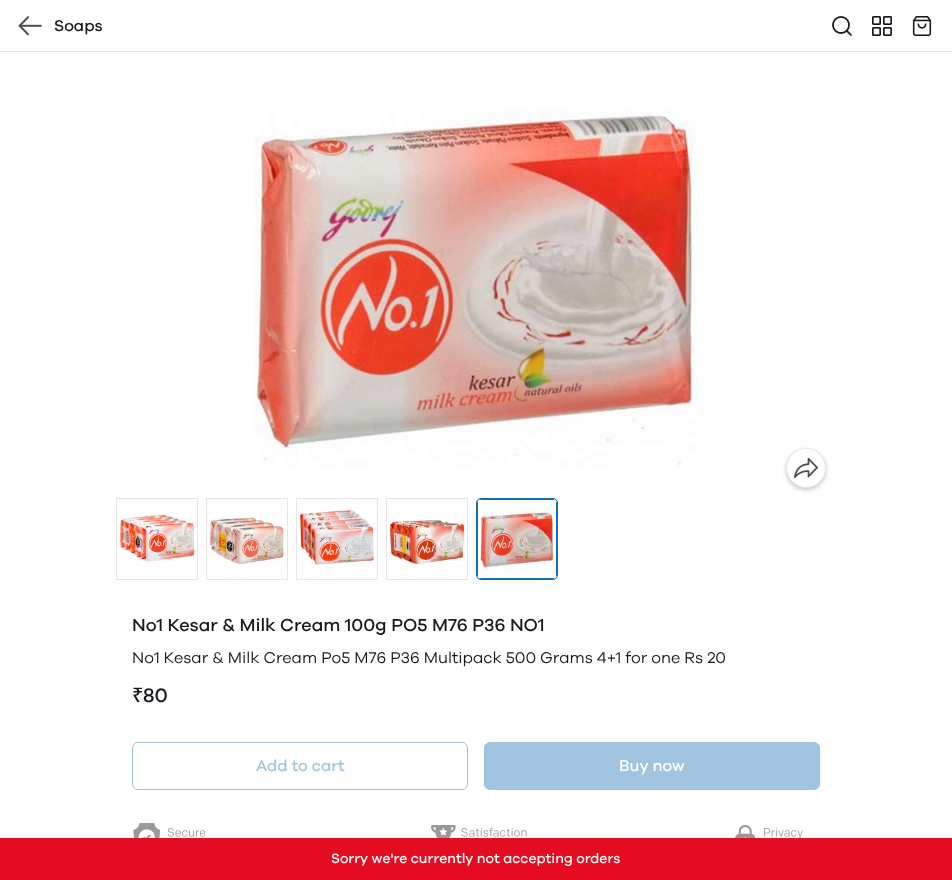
(async () => {
  const canvas = document.querySelector("canvas");
  canvas.width = 952;
  canvas.height = 880;
  const ctx = canvas.getContext("2d");
  ctx.miterLimit = 4;
  ctx.fontKerning = "normal";
  async function loadImage(src) {
    const img = new Image();
    img.src = src;
    await img.decode();
    return img;
  }
  let path;

  ctx.fillStyle = "#ffffff";
  ctx.fillRect(0, 0, 952, 880);
  ctx.fillStyle = "#e6e6e6";
  ctx.fillRect(0, 51, 952, 1);
  ctx.drawImage(await loadImage("img/1.png"), 18, 16, 24, 20);
  ctx.drawImage(await loadImage("img/2.png"), 832, 16, 20, 20);
  ctx.drawImage(await loadImage("img/3.png"), 872, 16, 20, 20);
  ctx.drawImage(await loadImage("img/4.png"), 912, 16, 20, 20);
  ctx.drawImage(await loadImage("img/5.png"), 253, 110, 446, 357);
  ctx.fillStyle = "rgba(26, 24, 30, 0.24)";
  ctx.filter = "blur(2px)";
  ctx.beginPath();
  ctx.roundRect(786, 450, 40, 40, 20);
  ctx.fill();
  ctx.filter = "none";
  ctx.fillStyle = "#ffffff";
  ctx.beginPath();
  ctx.arc(806, 468, 19.5, 0, Math.PI * 2);
  ctx.fill();
  ctx.strokeStyle = "#e6e6e6";
  ctx.stroke();
  ctx.drawImage(await loadImage("img/6.png"), 794, 457, 24, 22);
  ctx.strokeRect(116.5, 498.5, 81, 81);
  ctx.drawImage(await loadImage("img/7.png"), 119, 514, 76, 48);
  ctx.strokeRect(206.5, 498.5, 81, 81);
  ctx.drawImage(await loadImage("img/8.png"), 209, 517, 75, 48);
  ctx.strokeRect(296.5, 498.5, 81, 81);
  ctx.drawImage(await loadImage("img/9.png"), 299, 509, 75, 56);
  ctx.strokeRect(386.5, 498.5, 81, 81);
  ctx.drawImage(await loadImage("img/10.png"), 389, 519, 76, 46);
  ctx.beginPath();
  ctx.roundRect(476.5, 498.5, 81, 81, 4.5);
  ctx.strokeStyle = "#146eb4";
  ctx.stroke();
  ctx.fillStyle = "#146eb4";
  path = new Path2D("M477 503V575L478 578V500ZM481 499L478 500H556L553 499ZM557 503L556 500V578L557 575ZM553 579L556 578H478L481 579Z");
  ctx.fill(path, "evenodd");
  ctx.drawImage(await loadImage("img/11.png"), 480, 512, 74, 59);
  ctx.beginPath();
  ctx.roundRect(132.5, 742.5, 335, 47, 5.5);
  ctx.strokeStyle = "#a1c5e1";
  ctx.stroke();
  ctx.fillStyle = "#a1c5e1";
  ctx.beginPath();
  ctx.roundRect(484.5, 742.5, 335, 47, 5.5);
  ctx.fill();
  ctx.stroke();
  ctx.drawImage(await loadImage("img/12.png"), 133, 823, 73, 15);
  ctx.drawImage(await loadImage("img/13.png"), 431, 825, 96, 13);
  ctx.drawImage(await loadImage("img/14.png"), 735, 825, 68, 13);
  ctx.fillStyle = "#e50b20";
  ctx.fillRect(0, 838, 952, 42);
  ctx.font = "500 16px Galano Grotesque";
  ctx.fillStyle = "#1a181e";
  ctx.fillText("Soaps", 54, 31);
  ctx.font = "500 18px Galano Grotesque";
  ctx.fillText("No1 Kesar & Milk Cream 100g PO5 M76 P36 NO1", 132, 631);
  ctx.font = "16px Galano Grotesque";
  ctx.fillText("No1 Kesar & Milk Cream Po5 M76 P36 Multipack 500 Grams 4+1 for one Rs 20", 132, 663);
  ctx.font = "500 20px Noto Sans";
  ctx.fillText("₹", 132, 702);
  ctx.font = "500 20px Galano Grotesque";
  ctx.fillText("80", 143, 702);
  ctx.font = "500 16px Galano Grotesque";
  ctx.fillStyle = "#a1c5e1";
  ctx.fillText("Add to cart", 256, 771);
  ctx.fillStyle = "#ffffff";
  ctx.fillText("Buy now", 619, 771);
  ctx.font = "500 14px Galano Grotesque";
  ctx.fillText("Sorry we're currently not accepting orders", 331, 863);
})();
